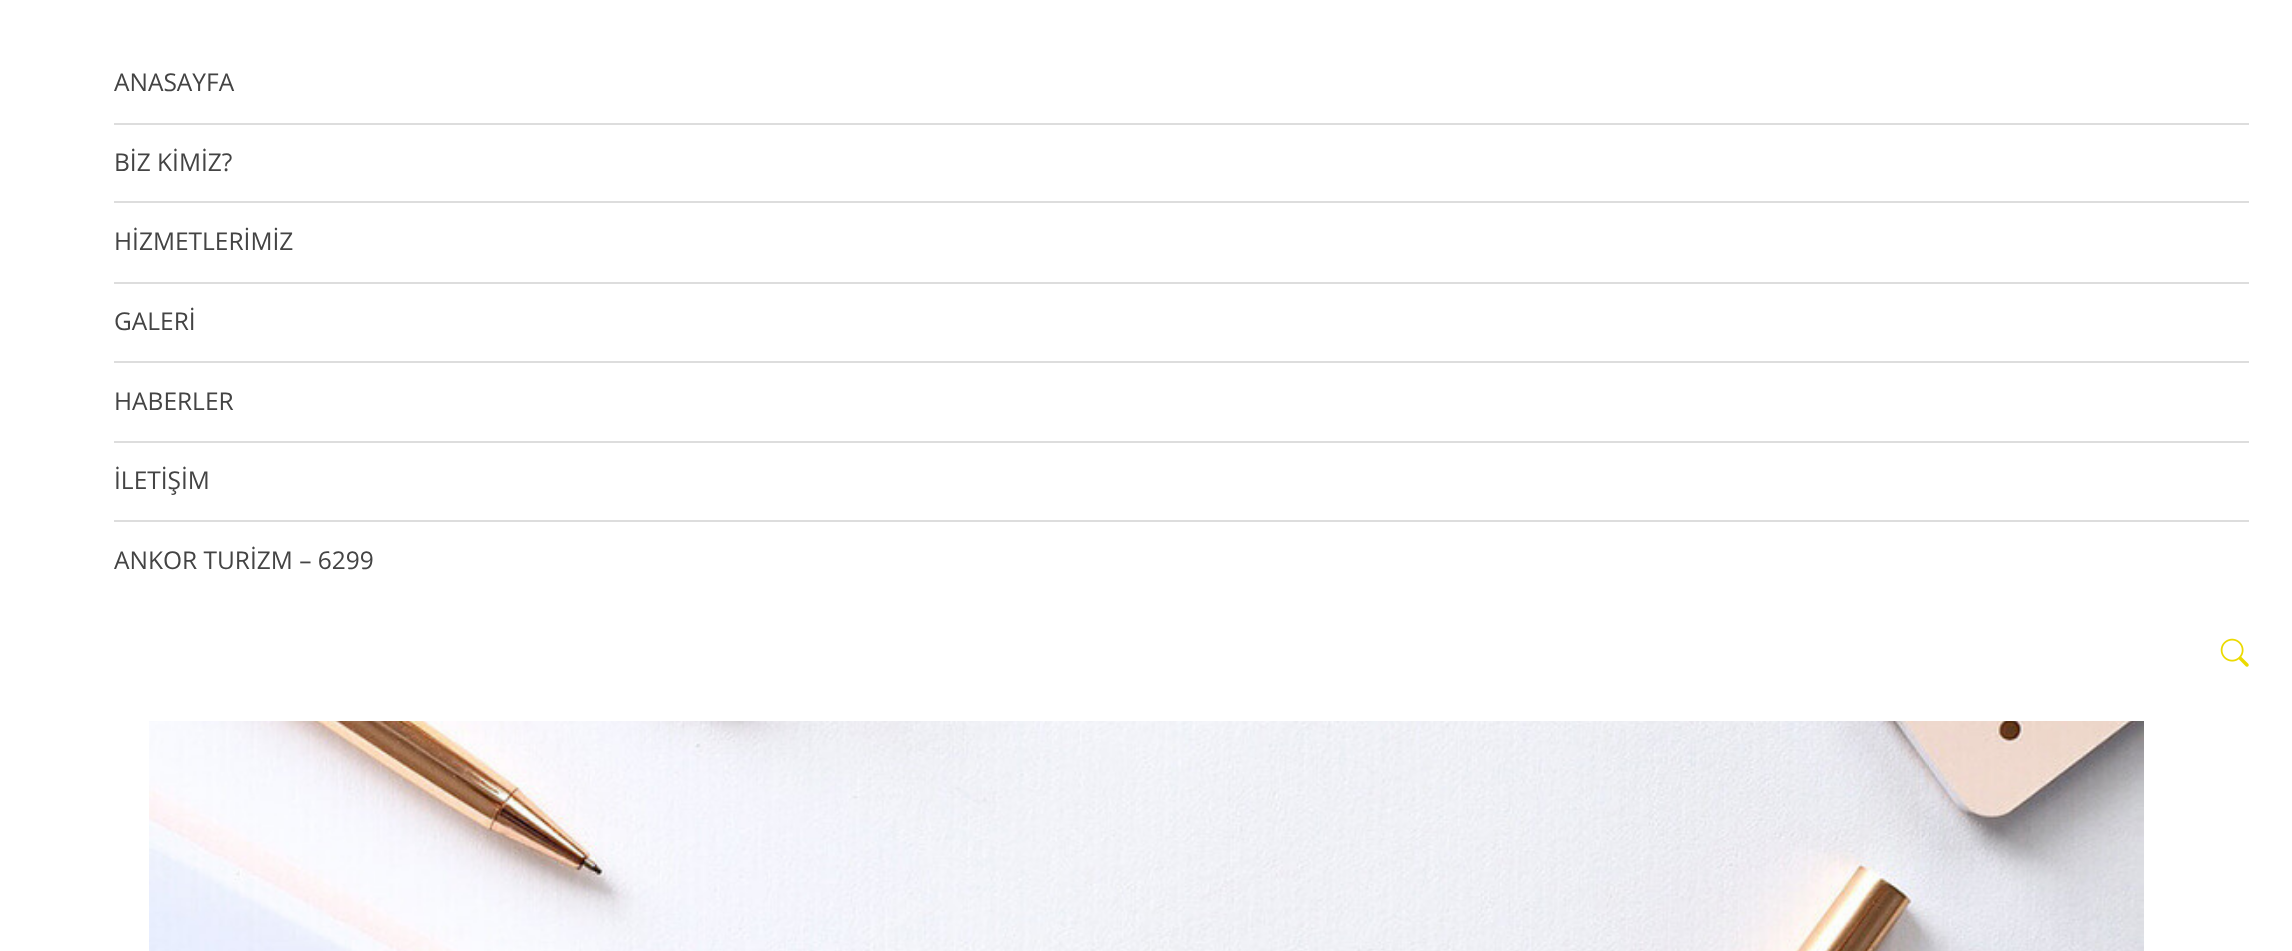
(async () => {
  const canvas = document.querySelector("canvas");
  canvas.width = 2292;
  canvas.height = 951;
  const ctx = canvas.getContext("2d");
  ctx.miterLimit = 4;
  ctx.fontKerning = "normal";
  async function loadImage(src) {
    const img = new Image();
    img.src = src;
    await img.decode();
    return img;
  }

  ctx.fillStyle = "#ffffff";
  ctx.fillRect(0, 0, 2292, 951);
  for (const [x, y, w, h, color] of [
    [114, 123, 2135, 2, "#dddddd"],
    [114, 201, 2135, 2, "#dddddd"],
    [114, 282, 2135, 2, "#dddddd"],
    [114, 361, 2135, 2, "#dddddd"],
    [114, 441, 2135, 2, "#dddddd"],
    [114, 520, 2135, 2, "#dddddd"],
  ]) {
    ctx.fillStyle = color;
    ctx.fillRect(x, y, w, h);
  }
  ctx.drawImage(await loadImage("img/1.png"), 2220, 638, 29, 29);
  ctx.drawImage(await loadImage("img/2.png"), 149, 721, 1995, 230);
  ctx.font = "24.5px Open Sans";
  ctx.fillStyle = "#444444";
  for (const [text, x, y] of [
    ["ANASAYFA", 114, 91],
    ["BİZ KİMİZ?", 114, 171],
    ["HİZMETLERİMİZ", 114, 250],
    ["GALERİ", 114, 330],
    ["HABERLER", 114, 410],
    ["İLETİŞİM", 114, 489],
    ["ANKOR TURİZM – 6299", 114, 569],
  ]) {
    ctx.fillText(text, x, y);
  }
})();
